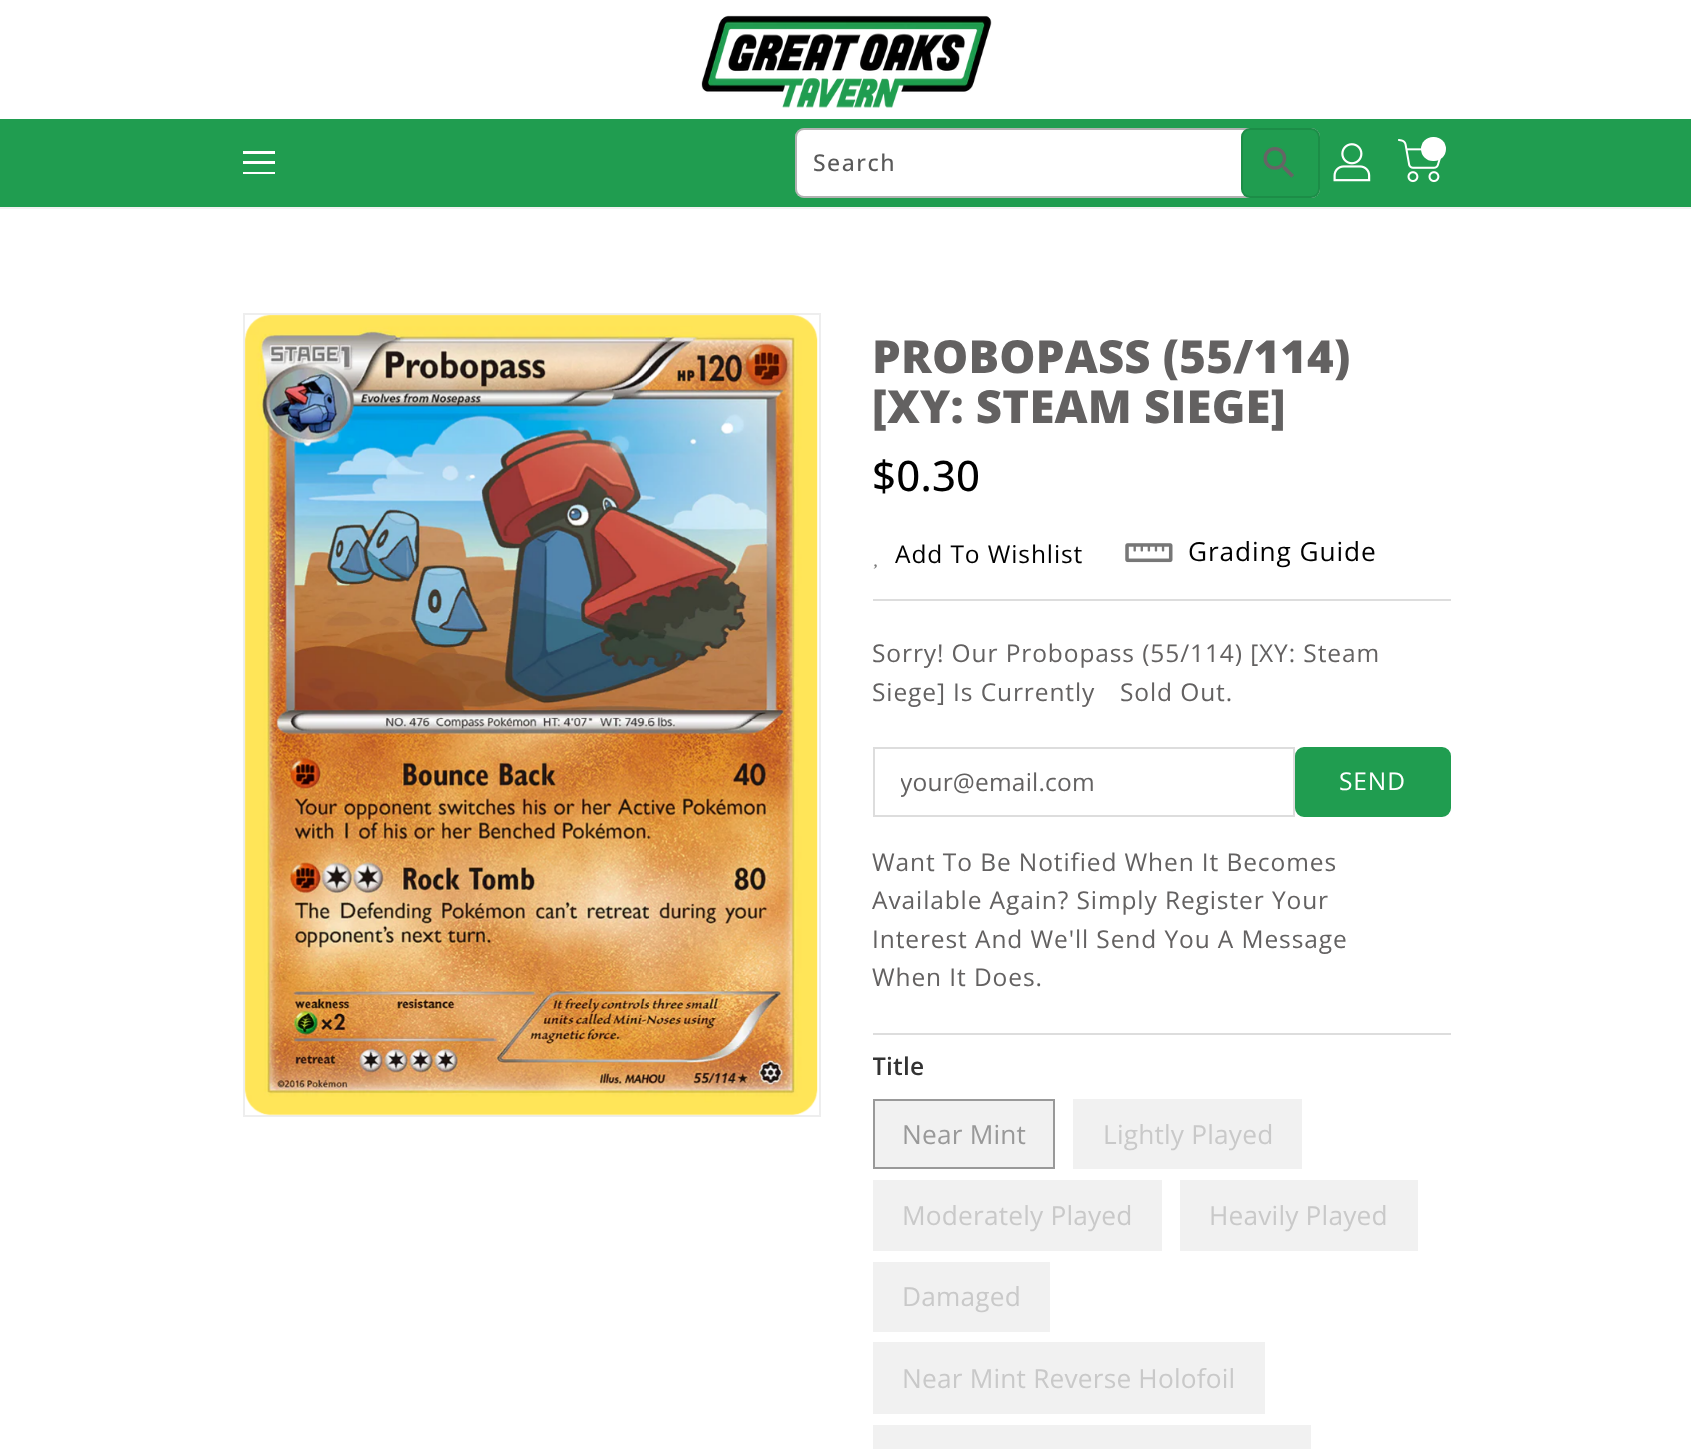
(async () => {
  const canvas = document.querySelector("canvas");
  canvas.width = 1691;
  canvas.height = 1449;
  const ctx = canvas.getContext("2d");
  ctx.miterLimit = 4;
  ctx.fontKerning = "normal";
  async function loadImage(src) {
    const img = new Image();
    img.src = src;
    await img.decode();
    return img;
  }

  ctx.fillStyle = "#ffffff";
  ctx.fillRect(0, 0, 1691, 1449);
  ctx.fillStyle = "#f2f2f2";
  ctx.fillRect(0, 207, 1691, 2);
  ctx.drawImage(await loadImage("img/1.png"), 701, 15, 291, 93);
  for (const [x, y, w, h, color] of [
    [0, 119, 1691, 88, "#209d50"],
    [243, 151, 32, 3, "#ffffff"],
    [243, 161, 32, 3, "#ffffff"],
    [243, 172, 32, 2, "#ffffff"],
  ]) {
    ctx.fillStyle = color;
    ctx.fillRect(x, y, w, h);
  }
  ctx.beginPath();
  ctx.roundRect(795, 128, 525, 70, 9);
  ctx.fill();
  ctx.beginPath();
  ctx.roundRect(796, 129, 523, 68, 8);
  ctx.strokeStyle = "rgba(0, 0, 0, 0.3)";
  ctx.lineWidth = 2;
  ctx.stroke();
  ctx.fillStyle = "#209d50";
  ctx.beginPath();
  ctx.roundRect(1241, 128, 79, 70, 9);
  ctx.fill();
  ctx.beginPath();
  ctx.roundRect(1242, 129, 77, 68, 8);
  ctx.strokeStyle = "rgba(0, 0, 0, 0.1)";
  ctx.stroke();
  ctx.drawImage(await loadImage("img/2.png"), 1263, 147, 31, 31);
  ctx.drawImage(await loadImage("img/3.png"), 1333, 143, 38, 39);
  ctx.drawImage(await loadImage("img/4.png"), 1398, 139, 44, 44);
  ctx.fillStyle = "#ffffff";
  ctx.beginPath();
  ctx.roundRect(1421, 137, 25, 24, 12);
  ctx.fill();
  ctx.strokeStyle = "#eeeeee";
  ctx.strokeRect(244, 314, 576, 802);
  ctx.drawImage(await loadImage("img/5.png"), 244, 314, 574, 802);
  ctx.drawImage(await loadImage("img/6.png"), 873, 564, 4, 5);
  ctx.drawImage(await loadImage("img/7.png"), 1125, 543, 48, 20);
  ctx.fillStyle = "#dddddd";
  ctx.fillRect(873, 599, 578, 2);
  ctx.fillRect(873, 1033, 578, 2);
  ctx.strokeStyle = "#dddddd";
  ctx.strokeRect(874, 748, 420, 68);
  ctx.fillStyle = "#209d50";
  ctx.beginPath();
  ctx.roundRect(1296, 748, 154, 68, 8);
  ctx.fill();
  ctx.strokeStyle = "#209d50";
  ctx.stroke();
  ctx.fillStyle = "#f1f1f1";
  ctx.beginPath();
  ctx.rect(874, 1100, 180, 68);
  ctx.fill();
  ctx.strokeStyle = "#999999";
  ctx.stroke();
  for (const [x, y, w, h, color] of [
    [1073, 1099, 229, 70, "#f1f1f1"],
    [873, 1180, 289, 71, "#f1f1f1"],
    [1180, 1180, 238, 71, "#f1f1f1"],
    [873, 1262, 177, 70, "#f1f1f1"],
    [873, 1342, 392, 72, "#f1f1f1"],
    [873, 1425, 438, 24, "#f1f1f1"],
  ]) {
    ctx.fillStyle = color;
    ctx.fillRect(x, y, w, h);
  }
  ctx.letterSpacing = "1.5px";
  ctx.font = "500 23px Open Sans";
  ctx.fillStyle = "#595959";
  ctx.fillText("Search", 813, 171);
  ctx.letterSpacing = "0.2px";
  ctx.font = "800 45.5px Open Sans";
  ctx.fillStyle = "#636161";
  ctx.fillText("PROBOPASS (55/114)", 872, 373);
  ctx.fillText("[XY: STEAM SIEGE]", 872, 423);
  ctx.font = "500 42px Open Sans";
  ctx.fillStyle = "#000000";
  ctx.fillText("$0.30", 872, 491);
  ctx.letterSpacing = "0.9px";
  ctx.font = "24.5px Open Sans";
  ctx.fillText("Add To Wishlist", 895, 563);
  ctx.font = "26.25px Open Sans";
  ctx.fillText("Grading Guide", 1188, 561);
  ctx.font = "24.5px Open Sans";
  ctx.fillStyle = "#636161";
  for (const [text, x, y] of [
    ["Sorry! Our Probopass (55/114) [XY: Steam", 872, 662],
    ["Siege] Is Currently", 872, 701],
    ["Sold Out.", 1120, 701],
  ]) {
    ctx.fillText(text, x, y);
  }
  ctx.save();
  ctx.beginPath();
  ctx.rect(901, 765, 366, 33);
  ctx.clip();
  ctx.letterSpacing = "0.2px";
  ctx.fillText("your@email.com", 900, 791);
  ctx.restore();
  ctx.fillStyle = "#ffffff";
  ctx.fillText("SEND", 1339, 790);
  ctx.fillStyle = "#636161";
  for (const [text, x, y] of [
    ["Want To Be Notified When It Becomes", 872, 871],
    ["Available Again? Simply Register Your", 872, 909],
    ["Interest And We'll Send You A Message", 872, 948],
    ["When It Does.", 872, 986],
  ]) {
    ctx.fillText(text, x, y);
  }
  ctx.save();
  ctx.beginPath();
  ctx.rect(873, 1048, 569, 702);
  ctx.clip();
  ctx.letterSpacing = "0.2px";
  ctx.font = "600 24.5px Open Sans";
  ctx.fillStyle = "#333333";
  ctx.fillText("Title", 872, 1075);
  ctx.restore();
  ctx.letterSpacing = "0.2px";
  ctx.font = "26.25px Open Sans";
  ctx.fillStyle = "#999999";
  ctx.fillText("Near Mint", 902, 1144);
  ctx.fillStyle = "#c9c9c9";
  for (const [text, x, y] of [
    ["Lightly Played", 1103, 1144],
    ["Moderately Played", 902, 1225],
    ["Heavily Played", 1209, 1225],
    ["Damaged", 902, 1306],
    ["Near Mint Reverse Holofoil", 902, 1388],
  ]) {
    ctx.fillText(text, x, y);
  }
})();
